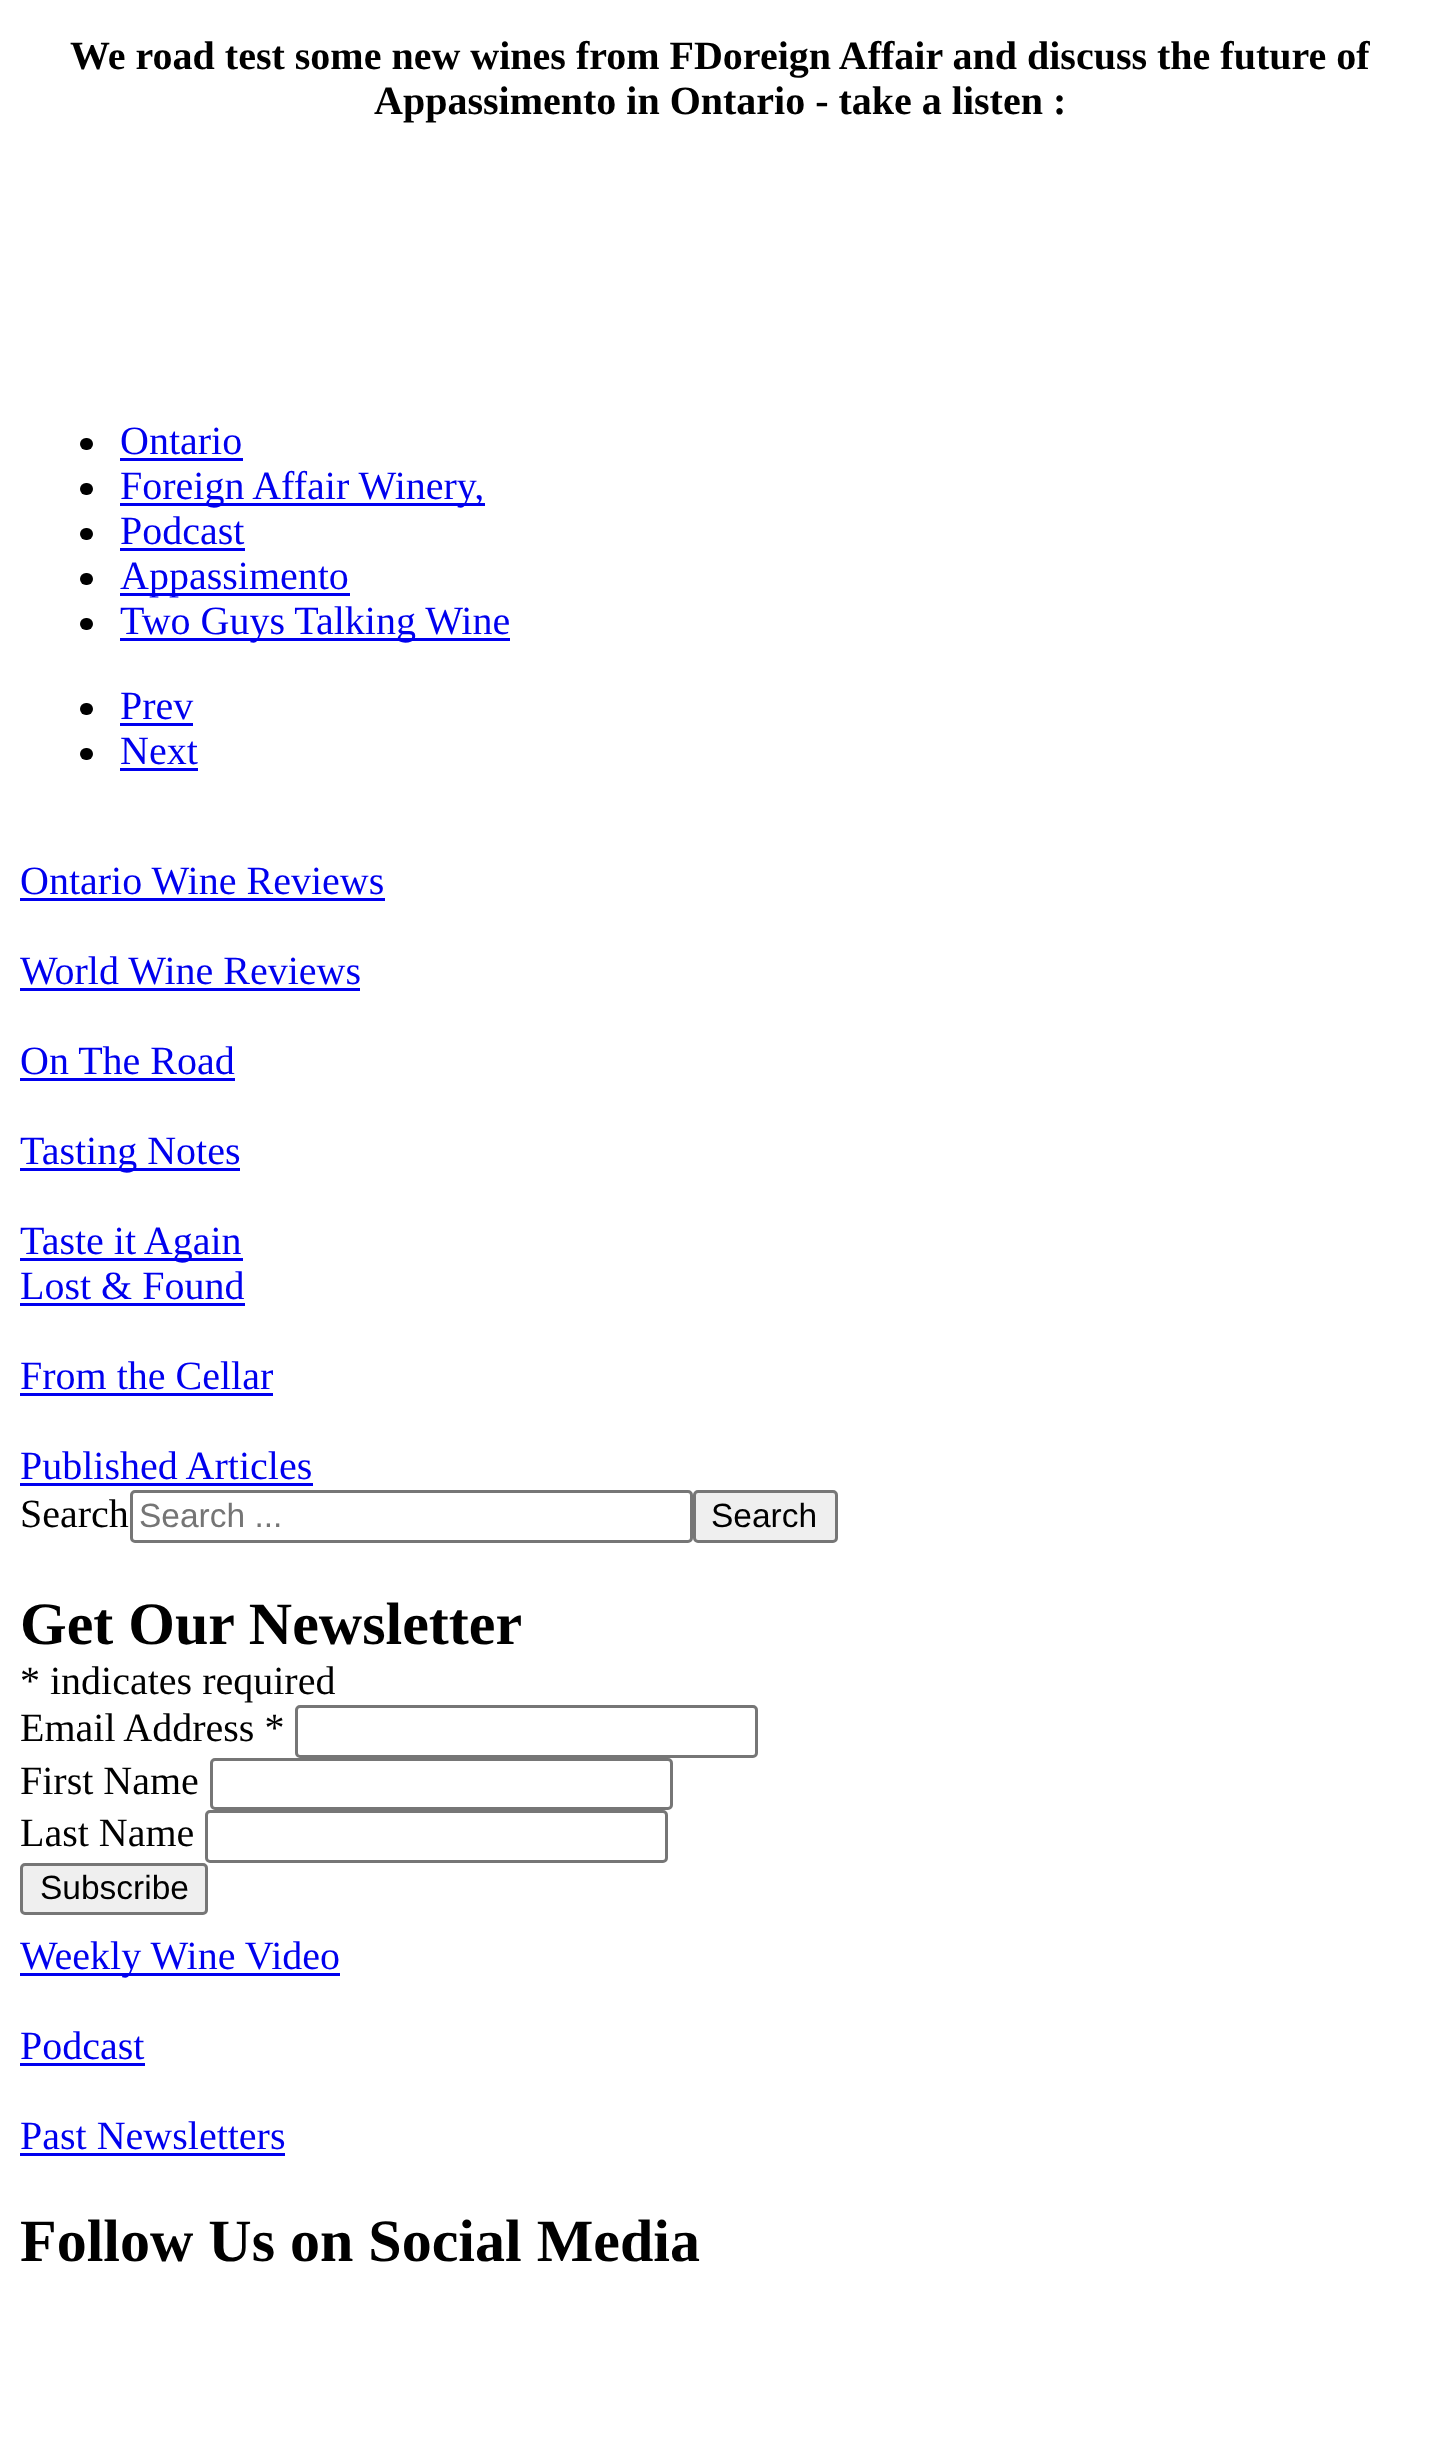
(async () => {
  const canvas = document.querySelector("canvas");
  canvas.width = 1438;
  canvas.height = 2447;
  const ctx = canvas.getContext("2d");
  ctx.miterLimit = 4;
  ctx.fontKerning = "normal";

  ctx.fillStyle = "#ffffff";
  ctx.fillRect(0, 0, 1438, 2447);
  ctx.fillStyle = "#000000";
  ctx.beginPath();
  ctx.roundRect(80, 438, 13, 12, 6);
  ctx.fill();
  ctx.fillStyle = "#0000ee";
  ctx.fillRect(120, 458, 123, 3);
  ctx.fillStyle = "#000000";
  ctx.beginPath();
  ctx.roundRect(80, 483, 13, 12, 6);
  ctx.fill();
  ctx.fillStyle = "#0000ee";
  ctx.fillRect(120, 503, 365, 3);
  ctx.fillStyle = "#000000";
  ctx.beginPath();
  ctx.roundRect(80, 528, 13, 12, 6);
  ctx.fill();
  ctx.fillStyle = "#0000ee";
  ctx.fillRect(120, 548, 125, 3);
  ctx.fillStyle = "#000000";
  ctx.beginPath();
  ctx.roundRect(80, 573, 13, 12, 6);
  ctx.fill();
  ctx.fillStyle = "#0000ee";
  ctx.fillRect(120, 593, 230, 3);
  ctx.fillStyle = "#000000";
  ctx.beginPath();
  ctx.roundRect(80, 618, 13, 12, 6);
  ctx.fill();
  ctx.fillStyle = "#0000ee";
  ctx.fillRect(120, 638, 390, 3);
  ctx.fillStyle = "#000000";
  ctx.beginPath();
  ctx.roundRect(80, 703, 13, 12, 6);
  ctx.fill();
  ctx.fillStyle = "#0000ee";
  ctx.fillRect(120, 723, 73, 3);
  ctx.fillStyle = "#000000";
  ctx.beginPath();
  ctx.roundRect(80, 748, 13, 12, 6);
  ctx.fill();
  for (const [x, y, w, h, color] of [
    [120, 768, 78, 3, "#0000ee"],
    [20, 898, 365, 3, "#0000ee"],
    [20, 988, 340, 3, "#0000ee"],
    [20, 1078, 215, 3, "#0000ee"],
    [20, 1168, 220, 3, "#0000ee"],
    [20, 1258, 223, 3, "#0000ee"],
    [20, 1303, 225, 3, "#0000ee"],
    [20, 1393, 253, 3, "#0000ee"],
    [20, 1483, 293, 3, "#0000ee"],
  ]) {
    ctx.fillStyle = color;
    ctx.fillRect(x, y, w, h);
  }
  ctx.beginPath();
  ctx.roundRect(131.5, 1491.5, 560, 50, 3.5);
  ctx.strokeStyle = "#767676";
  ctx.lineWidth = 3;
  ctx.stroke();
  ctx.fillStyle = "#efefef";
  ctx.beginPath();
  ctx.roundRect(694.5, 1491.5, 142, 50, 3.5);
  ctx.fill();
  ctx.stroke();
  ctx.beginPath();
  ctx.roundRect(296.5, 1706.5, 460, 50, 3.5);
  ctx.stroke();
  ctx.beginPath();
  ctx.roundRect(211.5, 1759.5, 460, 49, 3.5);
  ctx.stroke();
  ctx.beginPath();
  ctx.roundRect(206.5, 1811.5, 460, 50, 3.5);
  ctx.stroke();
  ctx.beginPath();
  ctx.roundRect(21.5, 1864.5, 185, 49, 3.5);
  ctx.fill();
  ctx.stroke();
  for (const [x, y, w, h, color] of [
    [20, 1973, 320, 3, "#0000ee"],
    [20, 2063, 125, 3, "#0000ee"],
    [20, 2153, 265, 3, "#0000ee"],
  ]) {
    ctx.fillStyle = color;
    ctx.fillRect(x, y, w, h);
  }
  ctx.font = "bold 40px Liberation Serif";
  ctx.fillStyle = "#000000";
  ctx.fillText("We road test some new wines from FDoreign Affair and discuss the future of", 70, 69);
  ctx.fillText("Appassimento in Ontario - take a listen :", 374, 114);
  ctx.font = "40px Liberation Serif";
  ctx.fillStyle = "#0000ee";
  for (const [text, x, y] of [
    ["Ontario", 120, 454],
    ["Foreign Affair Winery,", 120, 499],
    ["Podcast", 120, 544],
    ["Appassimento", 120, 589],
    ["Two Guys Talking Wine", 120, 634],
    ["Prev", 120, 719],
    ["Next", 120, 764],
    ["Ontario Wine Reviews", 20, 894],
    ["World Wine Reviews", 20, 984],
    ["On The Road", 20, 1074],
    ["Tasting Notes", 20, 1164],
    ["Taste it Again", 20, 1254],
    ["Lost & Found", 20, 1299],
    ["From the Cellar", 20, 1389],
    ["Published Articles", 20, 1479],
  ]) {
    ctx.fillText(text, x, y);
  }
  ctx.fillStyle = "#000000";
  ctx.fillText("Search", 20, 1527);
  ctx.font = "33.5px Liberation Sans";
  ctx.fillStyle = "#757575";
  ctx.fillText("Search ...", 139, 1527);
  ctx.fillStyle = "#000000";
  ctx.fillText("Search", 711, 1527);
  ctx.font = "bold 60px Liberation Serif";
  ctx.fillText("Get Our Newsletter", 20, 1644);
  ctx.font = "40px Liberation Serif";
  for (const [text, x, y] of [
    ["* indicates required", 20, 1694],
    ["Email Address *", 20, 1741],
    ["First Name", 20, 1794],
    ["Last Name", 20, 1846],
  ]) {
    ctx.fillText(text, x, y);
  }
  ctx.font = "33.5px Liberation Sans";
  ctx.fillText("Subscribe", 40, 1899);
  ctx.font = "40px Liberation Serif";
  ctx.fillStyle = "#0000ee";
  for (const [text, x, y] of [
    ["Weekly Wine Video", 20, 1969],
    ["Podcast", 20, 2059],
    ["Past Newsletters", 20, 2149],
  ]) {
    ctx.fillText(text, x, y);
  }
  ctx.font = "bold 60px Liberation Serif";
  ctx.fillStyle = "#000000";
  ctx.fillText("Follow Us on Social Media", 20, 2261);
})();
